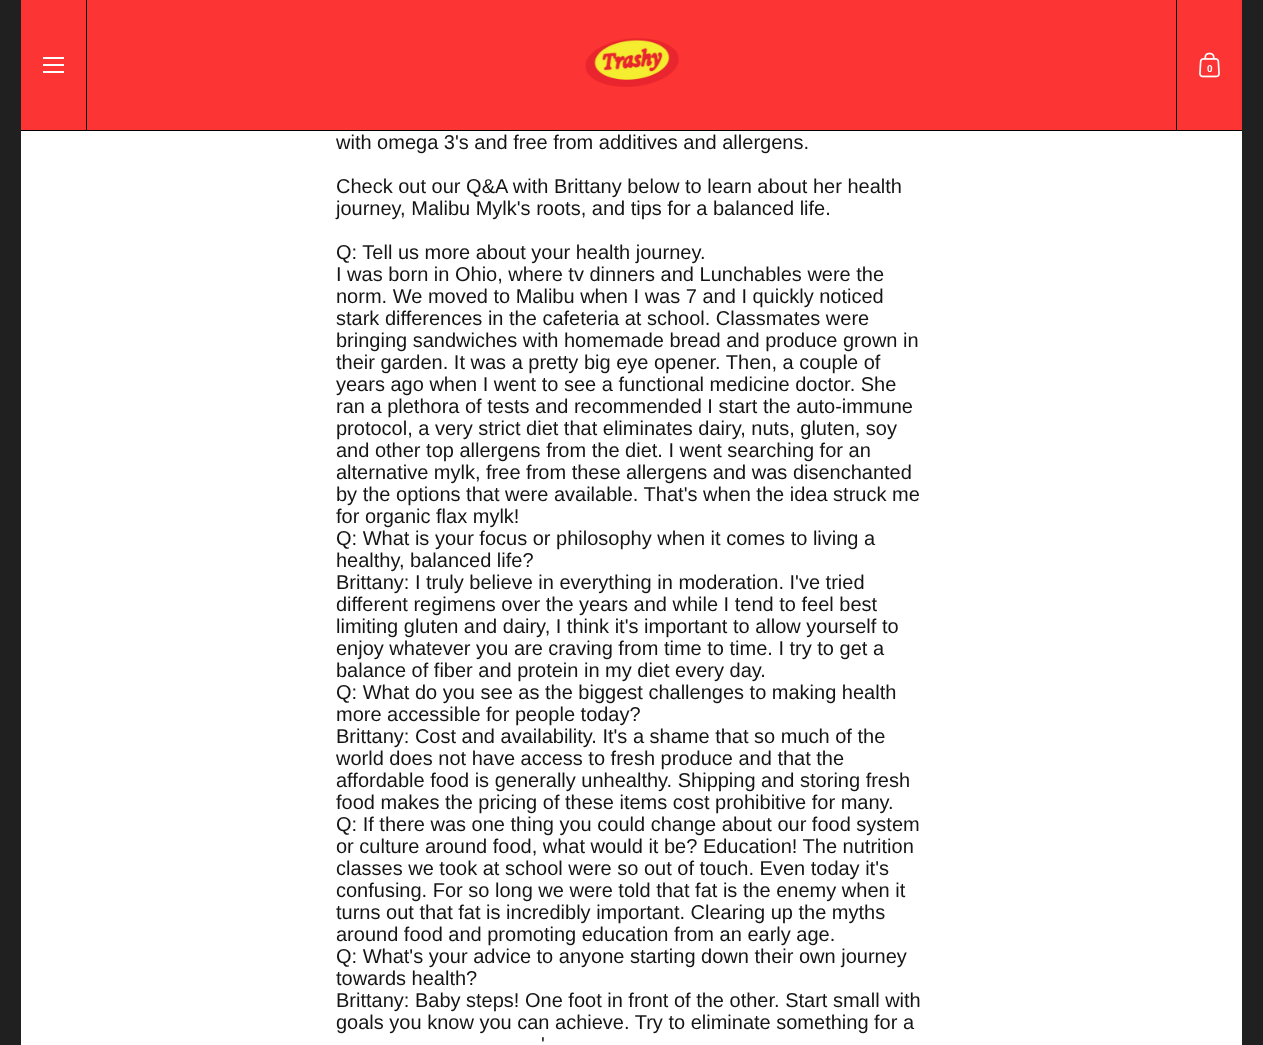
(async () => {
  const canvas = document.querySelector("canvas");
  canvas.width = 1263;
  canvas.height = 1045;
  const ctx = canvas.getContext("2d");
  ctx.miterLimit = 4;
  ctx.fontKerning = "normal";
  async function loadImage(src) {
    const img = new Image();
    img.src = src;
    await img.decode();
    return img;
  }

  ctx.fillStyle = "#212020";
  ctx.fillRect(0, 0, 1263, 1045);
  for (const [x, y, w, h, color] of [
    [21, 131, 1221, 914, "#ffffff"],
    [21, 0, 1221, 130, "#fc3433"],
    [86, 0, 1, 130, "#000000"],
    [43, 57, 21, 2, "#ffffff"],
    [43, 64, 21, 2, "#ffffff"],
    [43, 71, 21, 2, "#ffffff"],
  ]) {
    ctx.fillStyle = color;
    ctx.fillRect(x, y, w, h);
  }
  ctx.drawImage(await loadImage("img/1.png"), 585, 38, 94, 49);
  ctx.fillStyle = "#000000";
  ctx.fillRect(1176, 0, 1, 130);
  ctx.drawImage(await loadImage("img/2.png"), 1199, 52, 21, 26);
  ctx.fillRect(21, 130, 1221, 1);
  ctx.font = "bold 10px Liberation Sans";
  ctx.fillStyle = "#ffffff";
  ctx.fillText("0", 1207, 72);
  ctx.font = "20px Liberation Sans";
  ctx.fillStyle = "#151515";
  for (const [text, x, y] of [
    ["with omega 3's and free from additives and allergens.", 336, 149],
    ["Check out our Q&A with Brittany below to learn about her health", 336, 193],
    ["journey, Malibu Mylk's roots, and tips for a balanced life.", 336, 215],
    ["Q: Tell us more about your health journey.", 336, 259],
    ["I was born in Ohio, where tv dinners and Lunchables were the", 336, 281],
    ["norm. We moved to Malibu when I was 7 and I quickly noticed", 336, 303],
    ["stark differences in the cafeteria at school. Classmates were", 336, 325],
    ["bringing sandwiches with homemade bread and produce grown in", 336, 347],
    ["their garden. It was a pretty big eye opener. Then, a couple of", 336, 369],
    ["years ago when I went to see a functional medicine doctor. She", 336, 391],
    ["ran a plethora of tests and recommended I start the auto-immune", 336, 413],
    ["protocol, a very strict diet that eliminates dairy, nuts, gluten, soy", 336, 435],
    ["and other top allergens from the diet. I went searching for an", 336, 457],
    ["alternative mylk, free from these allergens and was disenchanted", 336, 479],
    ["by the options that were available. That's when the idea struck me", 336, 501],
    ["for organic flax mylk!", 336, 523],
    ["Q: What is your focus or philosophy when it comes to living a", 336, 545],
    ["healthy, balanced life?", 336, 567],
    ["Brittany: I truly believe in everything in moderation. I've tried", 336, 589],
    ["different regimens over the years and while I tend to feel best", 336, 611],
    ["limiting gluten and dairy, I think it's important to allow yourself to", 336, 633],
    ["enjoy whatever you are craving from time to time. I try to get a", 336, 655],
    ["balance of fiber and protein in my diet every day.", 336, 677],
    ["Q: What do you see as the biggest challenges to making health", 336, 699],
    ["more accessible for people today?", 336, 721],
    ["Brittany: Cost and availability. It's a shame that so much of the", 336, 743],
    ["world does not have access to fresh produce and that the", 336, 765],
    ["affordable food is generally unhealthy. Shipping and storing fresh", 336, 787],
    ["food makes the pricing of these items cost prohibitive for many.", 336, 809],
    ["Q: If there was one thing you could change about our food system", 336, 831],
    ["or culture around food, what would it be? Education! The nutrition", 336, 853],
    ["classes we took at school were so out of touch. Even today it's", 336, 875],
    ["confusing. For so long we were told that fat is the enemy when it", 336, 897],
    ["turns out that fat is incredibly important. Clearing up the myths", 336, 919],
    ["around food and promoting education from an early age.", 336, 941],
    ["Q: What's your advice to anyone starting down their own journey", 336, 963],
    ["towards health?", 336, 985],
    ["Brittany: Baby steps! One foot in front of the other. Start small with", 336, 1007],
    ["goals you know you can achieve. Try to eliminate something for a", 336, 1029],
    ["'", 541, 1051],
  ]) {
    ctx.fillText(text, x, y);
  }
})();
